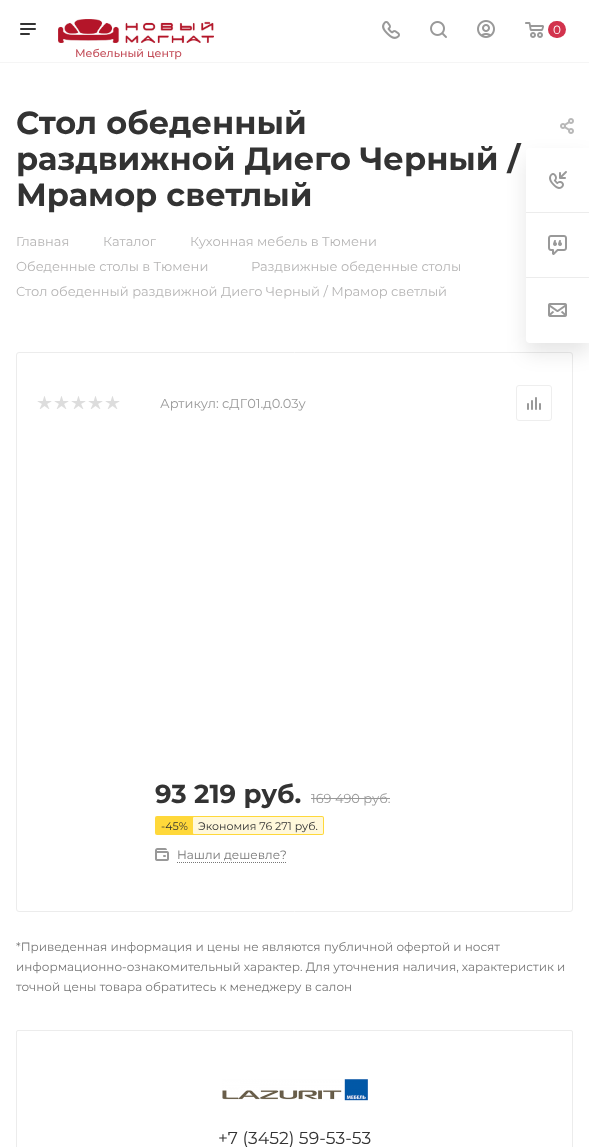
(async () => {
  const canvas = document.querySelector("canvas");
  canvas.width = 589;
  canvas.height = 1147;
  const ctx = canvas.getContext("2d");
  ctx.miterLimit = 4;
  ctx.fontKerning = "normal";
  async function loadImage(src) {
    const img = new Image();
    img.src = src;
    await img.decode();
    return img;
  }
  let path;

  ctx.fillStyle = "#ffffff";
  ctx.fillRect(0, 0, 589, 1147);
  ctx.fillStyle = "#f5f5f5";
  ctx.fillRect(0, 62, 589, 1);
  ctx.drawImage(await loadImage("img/1.png"), 20, 23, 16, 12);
  ctx.drawImage(await loadImage("img/2.png"), 382, 21, 18, 18);
  ctx.drawImage(await loadImage("img/3.png"), 430, 21, 17, 17);
  ctx.drawImage(await loadImage("img/4.png"), 477, 20, 18, 18);
  ctx.drawImage(await loadImage("img/5.png"), 525, 22, 19, 16);
  ctx.fillStyle = "#d2334d";
  ctx.beginPath();
  ctx.roundRect(548, 21, 18, 17, 8.5);
  ctx.fill();
  ctx.drawImage(await loadImage("img/6.png"), 58, 19, 156, 24);
  ctx.drawImage(await loadImage("img/7.png"), 560, 118, 14, 16);
  ctx.beginPath();
  ctx.roundRect(16.5, 352.5, 556, 559, 2.5);
  ctx.strokeStyle = "#ececec";
  ctx.stroke();
  ctx.drawImage(await loadImage("img/8.png"), 37, 396, 15, 13);
  ctx.drawImage(await loadImage("img/8.png"), 54, 396, 15, 13);
  ctx.drawImage(await loadImage("img/8.png"), 71, 396, 15, 13);
  ctx.drawImage(await loadImage("img/8.png"), 88, 396, 15, 13);
  ctx.drawImage(await loadImage("img/8.png"), 105, 396, 15, 13);
  ctx.beginPath();
  ctx.roundRect(516.5, 385.5, 35, 35, 2.5);
  ctx.strokeStyle = "#eeeeee";
  ctx.stroke();
  ctx.drawImage(await loadImage("img/9.png"), 527, 397, 14, 13);
  ctx.fillStyle = "#999999";
  ctx.fillRect(311, 798, 79, 1);
  ctx.fillStyle = "#ffd83a";
  ctx.beginPath();
  ctx.roundRect(155, 816, 169, 19, 2);
  ctx.fill();
  ctx.fillStyle = "#fff8db";
  ctx.beginPath();
  ctx.roundRect(193, 817, 130, 17, 1);
  ctx.fill();
  ctx.drawImage(await loadImage("img/10.png"), 155, 848, 14, 13);
  path = new Path2D("M177 862.5H287");
  ctx.strokeStyle = "#777777";
  ctx.setLineDash([1, 1]);
  ctx.stroke(path);
  ctx.beginPath();
  ctx.roundRect(16.5, 1030.5, 556, 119, 1.5);
  ctx.strokeStyle = "#ececec";
  ctx.setLineDash([]);
  ctx.stroke();
  ctx.drawImage(await loadImage("img/11.png"), 222, 1079, 146, 22);
  ctx.fillStyle = "rgba(0, 0, 0, 0.1)";
  ctx.filter = "blur(10px)";
  ctx.beginPath();
  ctx.roundRect(526, 158, 63, 195, 4);
  ctx.fill();
  ctx.filter = "none";
  ctx.fillStyle = "#ffffff";
  ctx.beginPath();
  ctx.roundRect(526, 148, 63, 195, [4, 0, 0, 4]);
  ctx.fill();
  ctx.fillStyle = "#ececec";
  ctx.fillRect(526, 212, 63, 1);
  ctx.drawImage(await loadImage("img/12.png"), 549, 171, 18, 18);
  ctx.fillRect(526, 277, 63, 1);
  ctx.drawImage(await loadImage("img/13.png"), 548, 235, 19, 20);
  ctx.drawImage(await loadImage("img/14.png"), 548, 303, 19, 14);
  ctx.font = "12px Montserrat";
  ctx.fillStyle = "#ffffff";
  ctx.fillText("0", 553, 34);
  ctx.font = "500 11px Montserrat";
  ctx.fillStyle = "#c34d59";
  ctx.fillText("Мебельный центр", 75, 57);
  ctx.font = "bold 32px Montserrat";
  ctx.fillStyle = "#333333";
  for (const [text, x, y] of [
    ["Стол обеденный", 16, 134],
    ["раздвижной Диего Черный /", 16, 170],
    ["Мрамор светлый", 16, 206],
  ]) {
    ctx.fillText(text, x, y);
  }
  ctx.font = "13px Montserrat";
  ctx.fillStyle = "#b6b5b5";
  for (const [text, x, y] of [
    ["Главная", 16, 246],
    ["Каталог", 103, 246],
    ["Кухонная мебель в Тюмени", 190, 246],
    ["Обеденные столы в Тюмени", 16, 271],
    ["Раздвижные обеденные столы", 251, 271],
    ["Стол обеденный раздвижной Диего Черный / Мрамор светлый", 16, 296],
  ]) {
    ctx.fillText(text, x, y);
  }
  ctx.fillStyle = "#999999";
  ctx.fillText("Артикул: сДГ01.д0.03у", 160, 408);
  ctx.font = "bold 26px Montserrat";
  ctx.fillStyle = "#333333";
  ctx.fillText("93 219 руб.", 155, 803);
  ctx.font = "13px Montserrat";
  ctx.fillStyle = "#999999";
  ctx.fillText("169 490 руб.", 311, 803);
  ctx.font = "11px Montserrat";
  ctx.fillStyle = "#333333";
  ctx.fillText("-45%", 161, 830);
  ctx.fillText("Экономия 76 271 руб.", 198, 830);
  ctx.font = "12px Montserrat";
  ctx.fillStyle = "#777777";
  for (const [text, x, y] of [
    ["Нашли дешевле?", 177, 859],
    ["*Приведенная информация и цены не являются публичной офертой и носят", 16, 951],
    ["информационно-ознакомительный характер. Для уточнения наличия, характеристик и", 16, 971],
    ["точной цены товара обратитесь к менеджеру в салон", 16, 991],
  ]) {
    ctx.fillText(text, x, y);
  }
  ctx.font = "17.25px Montserrat";
  ctx.fillStyle = "#333333";
  ctx.fillText("+7 (3452) 59-53-53", 218, 1144);
})();
